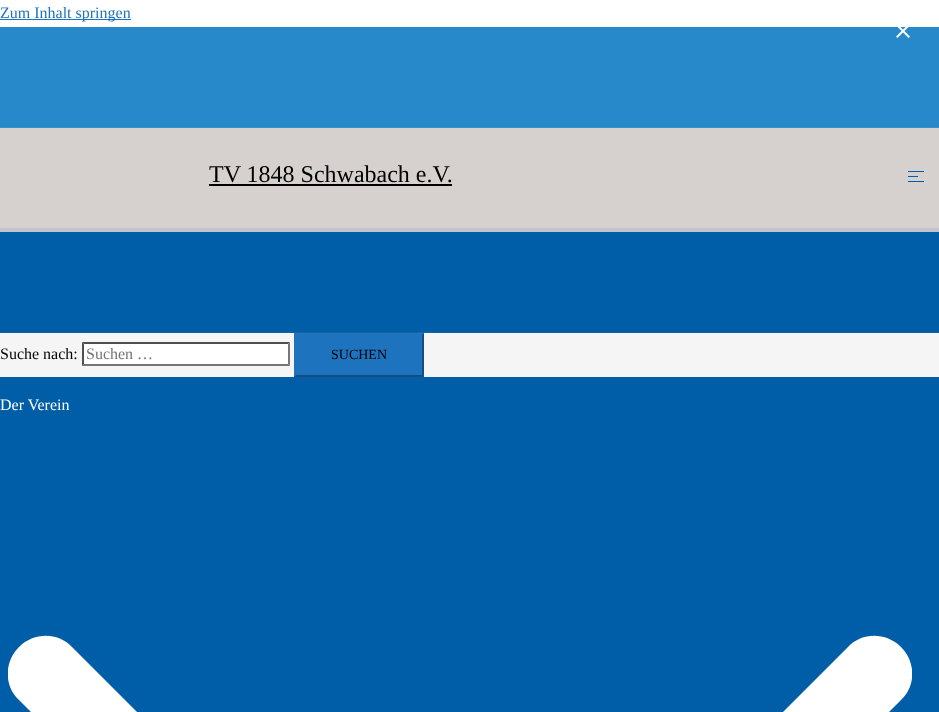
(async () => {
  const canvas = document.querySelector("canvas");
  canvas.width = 939;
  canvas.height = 712;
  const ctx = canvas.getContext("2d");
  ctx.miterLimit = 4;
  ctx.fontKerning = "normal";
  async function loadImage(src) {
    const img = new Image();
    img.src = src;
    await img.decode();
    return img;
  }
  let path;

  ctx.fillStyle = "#ffffff";
  ctx.fillRect(0, 0, 939, 712);
  for (const [x, y, w, h, color] of [
    [0, 19, 131, 1, "#1e73be"],
    [0, 27, 939, 100, "#2789c9"],
    [0, 127, 939, 1, "#3b93cc"],
    [0, 128, 939, 100, "#d6d1cf"],
    [0, 228, 939, 4, "#c1c5cb"],
    [209, 184, 243, 2, "#000000"],
    [908, 171, 16, 1, "#005da8"],
    [908, 176, 10, 1, "#005da8"],
    [908, 181, 16, 1, "#005da8"],
    [0, 232, 939, 100, "#005da8"],
    [0, 332, 939, 1, "#15659d"],
    [0, 333, 939, 44, "#f5f5f5"],
    [82, 342, 208, 24, "#ffffff"],
  ]) {
    ctx.fillStyle = color;
    ctx.fillRect(x, y, w, h);
  }
  ctx.fillStyle = "#4f4f4f";
  path = new Path2D("M82 342H290L288 344H84Z");
  ctx.fill(path);
  ctx.fillStyle = "#767676";
  path = new Path2D("M290 342V366L288 364V344Z");
  ctx.fill(path);
  path = new Path2D("M290 366H82L84 364H288Z");
  ctx.fill(path);
  ctx.fillStyle = "#4f4f4f";
  path = new Path2D("M82 366V342L84 344V364Z");
  ctx.fill(path);
  ctx.fillStyle = "#1e73be";
  ctx.fillRect(294, 333, 130, 44);
  ctx.fillStyle = "#144d7f";
  path = new Path2D("M424 333V377L422 375V335Z");
  ctx.fill(path);
  path = new Path2D("M424 377H294L296 375H422Z");
  ctx.fill(path);
  ctx.fillStyle = "#1e73be";
  path = new Path2D("M294 377V333L296 335V375Z");
  ctx.fill(path);
  ctx.fillStyle = "#005da8";
  ctx.fillRect(0, 377, 939, 335);
  ctx.drawImage(await loadImage("img/1.png"), 896, 27, 14, 11);
  ctx.save();
  ctx.beginPath();
  ctx.rect(8, 429, 904, 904);
  ctx.clip();
  ctx.fillStyle = "#ffffff";
  path = new Path2D("M901 647C886 632 862 632 848 647L460 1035L72 647C58 632 34 632 19 647C4 662 4 686 19 700L433 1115C440 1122 450 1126 460 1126C470 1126 480 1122 487 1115L901 700C916 686 916 662 901 647Z");
  ctx.fill(path);
  ctx.restore();
  ctx.font = "16px Liberation Serif";
  ctx.fillStyle = "#1e73be";
  ctx.fillText("Zum Inhalt springen", 0, 18);
  ctx.font = "24px Liberation Serif";
  ctx.fillStyle = "#000000";
  ctx.fillText("TV 1848 Schwabach e.V.", 209, 182);
  ctx.font = "16px Liberation Serif";
  ctx.fillText("Suche nach:", 0, 359);
  ctx.fillStyle = "#757575";
  ctx.fillText("Suchen …", 86, 359);
  ctx.font = "14px Liberation Serif";
  ctx.fillStyle = "#000000";
  ctx.fillText("SUCHEN", 331, 359);
  ctx.font = "16px Liberation Serif";
  ctx.fillStyle = "#ffffff";
  ctx.fillText("Der Verein", 0, 410);
})();
